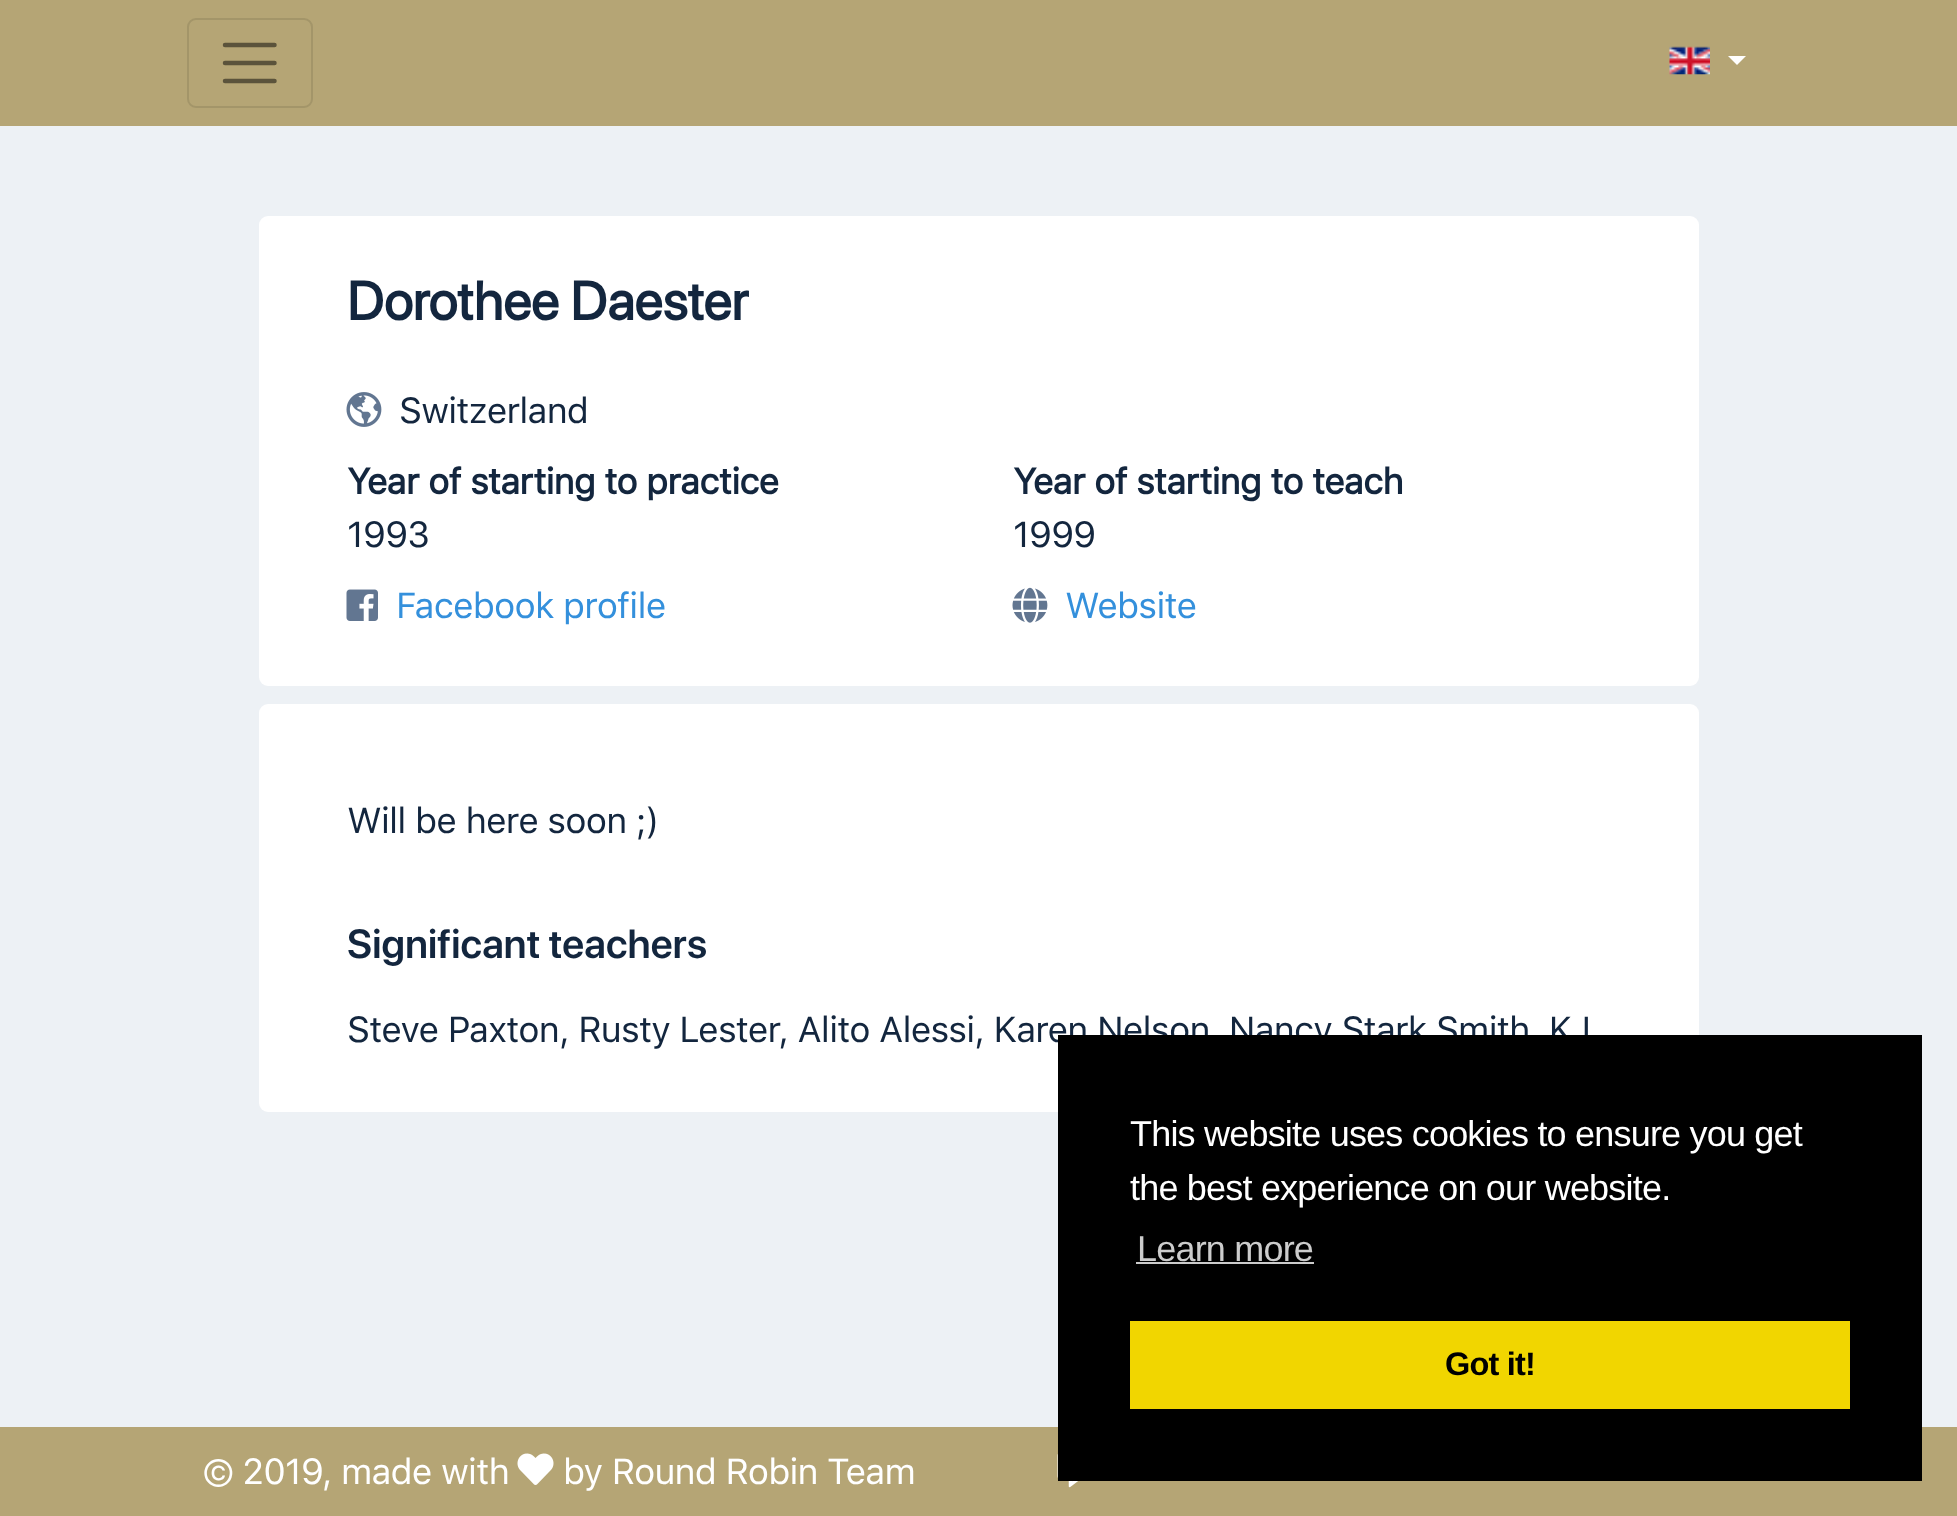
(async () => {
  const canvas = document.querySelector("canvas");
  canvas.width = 1957;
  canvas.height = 1516;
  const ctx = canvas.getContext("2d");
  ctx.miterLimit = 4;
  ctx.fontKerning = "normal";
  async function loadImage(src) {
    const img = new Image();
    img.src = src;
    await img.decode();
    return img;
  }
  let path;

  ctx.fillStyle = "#edf1f5";
  ctx.fillRect(0, 0, 1957, 1516);
  ctx.fillStyle = "#b5a575";
  ctx.fillRect(0, 0, 1957, 126);
  ctx.beginPath();
  ctx.roundRect(188, 19, 124, 88, 8);
  ctx.strokeStyle = "#a39569";
  ctx.lineWidth = 2;
  ctx.stroke();
  path = new Path2D("M225 45H274.5M225 63H274.5M225 81H274.5");
  ctx.strokeStyle = "#5b533b";
  ctx.lineWidth = 4.5;
  ctx.lineCap = "round";
  ctx.stroke(path);
  ctx.drawImage(await loadImage("img/1.png"), 1669, 46, 41, 29);
  ctx.fillStyle = "#ffffff";
  path = new Path2D("M1728 56H1746L1737 65Z");
  ctx.fill(path);
  ctx.beginPath();
  ctx.roundRect(259, 216, 1440, 470, 9);
  ctx.fill();
  ctx.drawImage(await loadImage("img/2.png"), 346, 392, 36, 35);
  ctx.drawImage(await loadImage("img/3.png"), 346, 589, 32, 32);
  ctx.drawImage(await loadImage("img/4.png"), 1012, 587, 36, 36);
  ctx.beginPath();
  ctx.roundRect(259, 704, 1440, 408, 9);
  ctx.fill();
  ctx.fillStyle = "#b5a575";
  ctx.fillRect(0, 1427, 1957, 89);
  ctx.drawImage(await loadImage("img/5.png"), 517, 1453, 37, 32);
  ctx.drawImage(await loadImage("img/6.png"), 1057, 1454, 21, 34);
  ctx.letterSpacing = "0.25px";
  ctx.font = "bold 54px SF Pro Display";
  ctx.fillStyle = "#13263e";
  ctx.fillText("Dorothee Daester", 347, 320);
  ctx.letterSpacing = "-0.8px";
  ctx.font = "36px SF Pro Text";
  ctx.fillText("Switzerland", 399, 423);
  ctx.font = "bold 36px SF Pro Text";
  ctx.fillText("Year of starting to practice", 347, 494);
  ctx.font = "36px SF Pro Text";
  ctx.fillText("1993", 347, 547);
  ctx.font = "bold 36px SF Pro Text";
  ctx.fillText("Year of starting to teach", 1013, 494);
  ctx.font = "36px SF Pro Text";
  ctx.fillText("1999", 1013, 547);
  ctx.fillStyle = "#3490dc";
  ctx.fillText("Facebook profile", 396, 618);
  ctx.fillText("Website", 1065, 618);
  ctx.fillStyle = "#13263e";
  ctx.fillText("Will be here soon ;)", 347, 833);
  ctx.letterSpacing = "0.2px";
  ctx.font = "600 40.5px SF Pro Display";
  ctx.fillText("Significant teachers", 347, 958);
  ctx.letterSpacing = "-0.8px";
  ctx.font = "36px SF Pro Text";
  ctx.fillText("Steve Paxton, Rusty Lester, Alito Alessi, Karen Nelson, Nancy Stark Smith, KJ", 347, 1042);
  ctx.fillStyle = "#000000";
  ctx.fillRect(1058, 1035, 864, 446);
  ctx.font = "36px Liberation Sans";
  ctx.fillStyle = "#ffffff";
  ctx.fillText("This website uses cookies to ensure you get", 1130, 1146);
  ctx.fillText("the best experience on our website.", 1130, 1200);
  ctx.fillStyle = "#cccccc";
  ctx.fillText("Learn more", 1137, 1261);
  ctx.fillRect(1136, 1262, 178, 2);
  ctx.fillStyle = "#f1d600";
  ctx.fillRect(1130, 1321, 720, 88);
  ctx.font = "bold 32.5px Liberation Sans";
  ctx.fillStyle = "#000000";
  ctx.fillText("Got it!", 1445, 1375);
  ctx.font = "36px SF Pro Text";
  ctx.fillStyle = "#ffffff";
  ctx.fillText("© 2019, made with", 203, 1484);
  ctx.fillText("by Round Robin Team", 563, 1484);
})();
